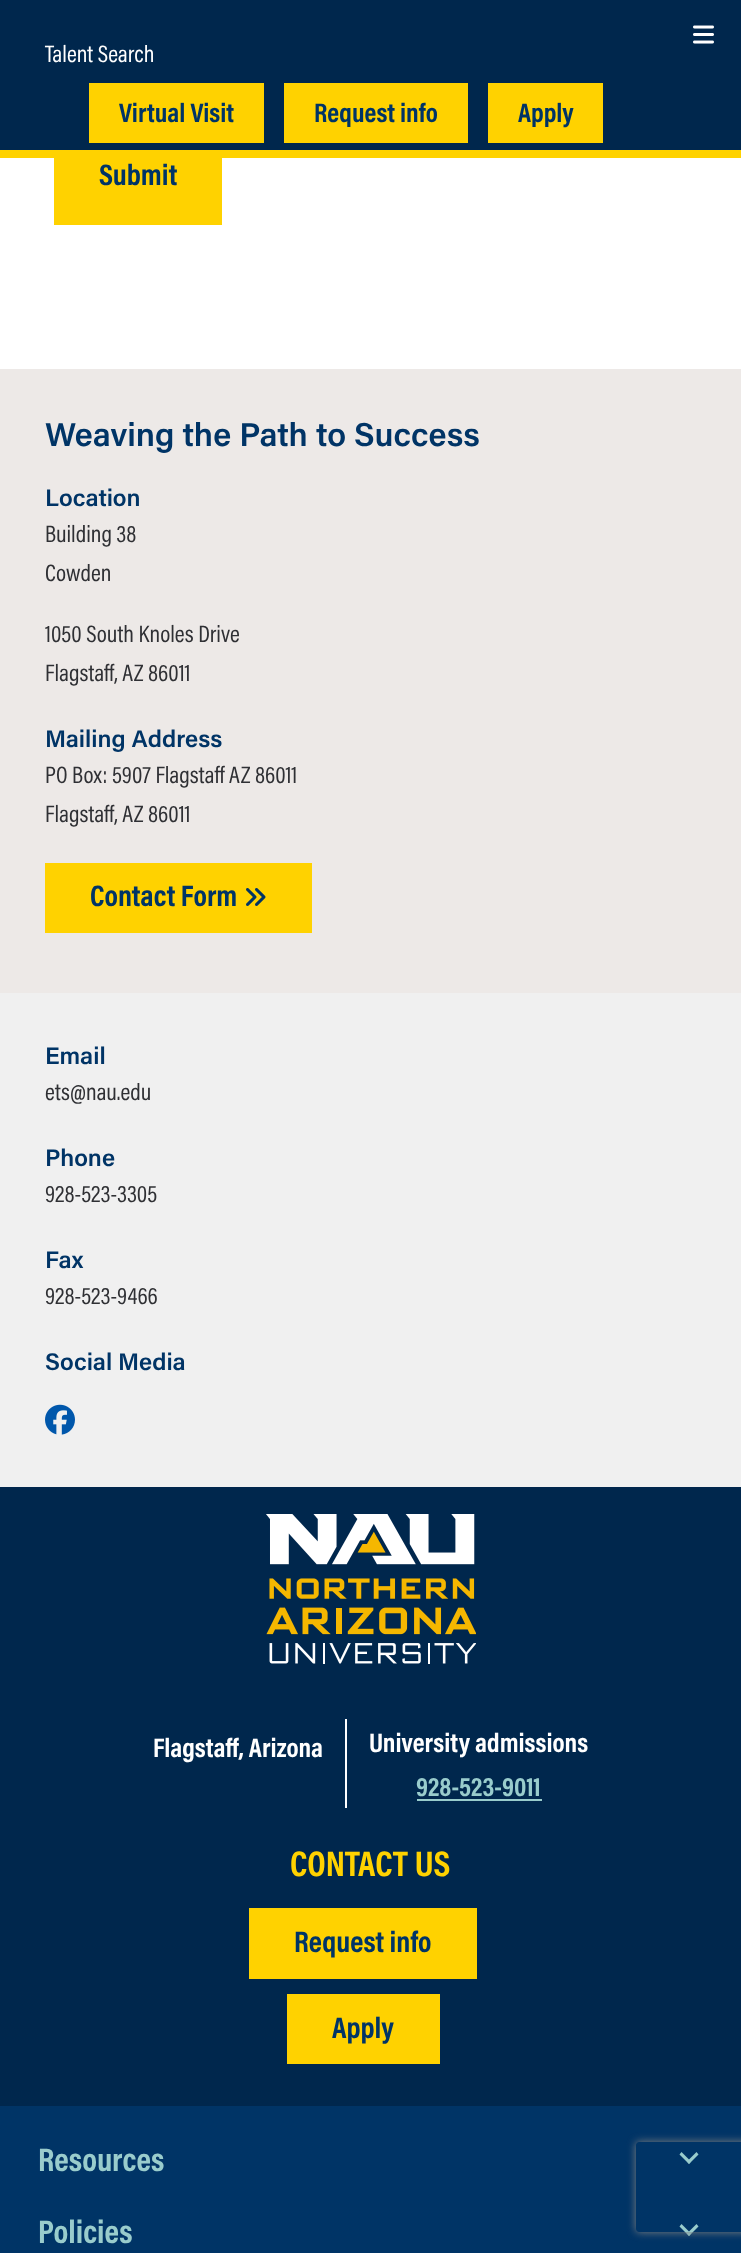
(async () => {
  const canvas = document.querySelector("canvas");
  canvas.width = 741;
  canvas.height = 2253;
  const ctx = canvas.getContext("2d");
  ctx.miterLimit = 4;
  ctx.fontKerning = "normal";
  async function loadImage(src) {
    const img = new Image();
    img.src = src;
    await img.decode();
    return img;
  }
  let path;

  ctx.fillStyle = "#ffffff";
  ctx.fillRect(0, 0, 741, 2253);
  ctx.fillStyle = "#00274d";
  ctx.fillRect(0, 0, 741, 150);
  ctx.drawImage(await loadImage("img/1.png"), 693, 25, 21, 19);
  for (const [x, y, w, h, color] of [
    [0, 150, 741, 8, "#ffd200"],
    [89, 83, 175, 60, "#ffd200"],
    [284, 83, 184, 60, "#ffd200"],
    [488, 83, 115, 60, "#ffd200"],
    [54, 158, 168, 67, "#ffd200"],
    [0, 369, 741, 624, "#ede9e7"],
    [45, 863, 267, 70, "#ffd200"],
  ]) {
    ctx.fillStyle = color;
    ctx.fillRect(x, y, w, h);
  }
  ctx.drawImage(await loadImage("img/2.png"), 246, 888, 20, 18);
  ctx.fillStyle = "#f0f0f0";
  ctx.fillRect(0, 993, 741, 494);
  ctx.drawImage(await loadImage("img/3.png"), 45, 1404, 30, 31);
  ctx.fillStyle = "#00274d";
  ctx.fillRect(0, 1487, 741, 619);
  ctx.drawImage(await loadImage("img/4.png"), 266, 1514, 210, 150);
  for (const [x, y, w, h, color] of [
    [345, 1719, 2, 89, "#ffffff"],
    [417, 1799, 125, 2, "#99cccc"],
    [249, 1908, 228, 71, "#ffd200"],
    [287, 1994, 153, 70, "#ffd200"],
    [0, 2106, 741, 147, "#003466"],
  ]) {
    ctx.fillStyle = color;
    ctx.fillRect(x, y, w, h);
  }
  ctx.fillStyle = "#99cccc";
  path = new Path2D("M696.5 2152L698.5 2154.5L689 2164L687 2161.5Z");
  ctx.fill(path);
  path = new Path2D("M681.5 2152L691 2161.5L689 2164L679.5 2154.5Z");
  ctx.fill(path);
  path = new Path2D("M696.5 2224L698.5 2226.5L689 2236L687 2233.5Z");
  ctx.fill(path);
  path = new Path2D("M681.5 2224L691 2233.5L689 2236L679.5 2226.5Z");
  ctx.fill(path);
  ctx.save();
  path = new Path2D("M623 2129H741V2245H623ZM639 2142H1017C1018.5 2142 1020 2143.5 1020 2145V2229C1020 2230.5 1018.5 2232 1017 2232H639C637.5 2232 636 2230.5 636 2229V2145C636 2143.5 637.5 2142 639 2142Z");
  ctx.clip(path, "evenodd");
  ctx.fillStyle = "#808080";
  ctx.filter = "blur(4px)";
  ctx.beginPath();
  ctx.roundRect(636, 2142, 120, 90, 3);
  ctx.fill();
  ctx.filter = "none";
  ctx.restore();
  ctx.font = "24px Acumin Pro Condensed";
  ctx.fillStyle = "#ffffff";
  ctx.fillText("Talent Search", 45, 62);
  ctx.font = "bold 27px Acumin Pro Condensed";
  ctx.fillStyle = "#003466";
  for (const [text, x, y] of [
    ["Virtual Visit", 119, 122],
    ["Request info", 314, 122],
    ["Apply", 518, 122],
  ]) {
    ctx.fillText(text, x, y);
  }
  ctx.font = "bold 30px Acumin Pro Condensed";
  ctx.fillText("Submit", 99, 185);
  ctx.font = "600 33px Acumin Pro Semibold";
  ctx.fillText("Weaving the Path to Success", 45, 446);
  ctx.font = "600 24px Acumin Pro Semibold";
  ctx.fillText("Location", 45, 506);
  ctx.font = "24px Acumin Pro Condensed";
  ctx.fillStyle = "#2f3034";
  for (const [text, x, y] of [
    ["Building 38", 45, 542],
    ["Cowden", 45, 581],
    ["1050 South Knoles Drive", 45, 642],
    ["Flagstaff, AZ 86011", 45, 681],
  ]) {
    ctx.fillText(text, x, y);
  }
  ctx.font = "600 24px Acumin Pro Semibold";
  ctx.fillStyle = "#003466";
  ctx.fillText("Mailing Address", 45, 747);
  ctx.font = "24px Acumin Pro Condensed";
  ctx.fillStyle = "#2f3034";
  ctx.fillText("PO Box: 5907 Flagstaff AZ 86011", 45, 783);
  ctx.fillText("Flagstaff, AZ 86011", 45, 822);
  ctx.font = "bold 30px Acumin Pro Condensed";
  ctx.fillStyle = "#003466";
  ctx.fillText("Contact Form", 90, 906);
  ctx.font = "600 24px Acumin Pro Semibold";
  ctx.fillText("Email", 45, 1064);
  ctx.font = "24px Acumin Pro Condensed";
  ctx.fillStyle = "#2f3034";
  ctx.fillText("ets@nau.edu", 45, 1100);
  ctx.font = "600 24px Acumin Pro Semibold";
  ctx.fillStyle = "#003466";
  ctx.fillText("Phone", 45, 1166);
  ctx.font = "24px Acumin Pro Condensed";
  ctx.fillStyle = "#2f3034";
  ctx.fillText("928-523-3305", 45, 1202);
  ctx.font = "600 24px Acumin Pro Semibold";
  ctx.fillStyle = "#003466";
  ctx.fillText("Fax", 45, 1268);
  ctx.font = "24px Acumin Pro Condensed";
  ctx.fillStyle = "#2f3034";
  ctx.fillText("928-523-9466", 45, 1304);
  ctx.font = "600 24px Acumin Pro Semibold";
  ctx.fillStyle = "#003466";
  ctx.fillText("Social Media", 45, 1370);
  ctx.font = "bold 27px Acumin Pro Condensed";
  ctx.fillStyle = "#ffffff";
  ctx.fillText("Flagstaff, Arizona", 153, 1757);
  ctx.fillText("University admissions", 369, 1752);
  ctx.fillStyle = "#99cccc";
  ctx.fillText("928-523-9011", 416, 1796);
  ctx.font = "bold 36px Acumin Pro Condensed";
  ctx.fillStyle = "#ffd200";
  ctx.fillText("CONTACT US", 290, 1876);
  ctx.font = "bold 30px Acumin Pro Condensed";
  ctx.fillStyle = "#003466";
  ctx.fillText("Request info", 294, 1952);
  ctx.fillText("Apply", 332, 2038);
  ctx.font = "bold 33px Acumin Pro Condensed";
  ctx.fillStyle = "#99cccc";
  ctx.fillText("Resources", 38, 2171);
  ctx.fillText("Policies", 38, 2243);
})();
